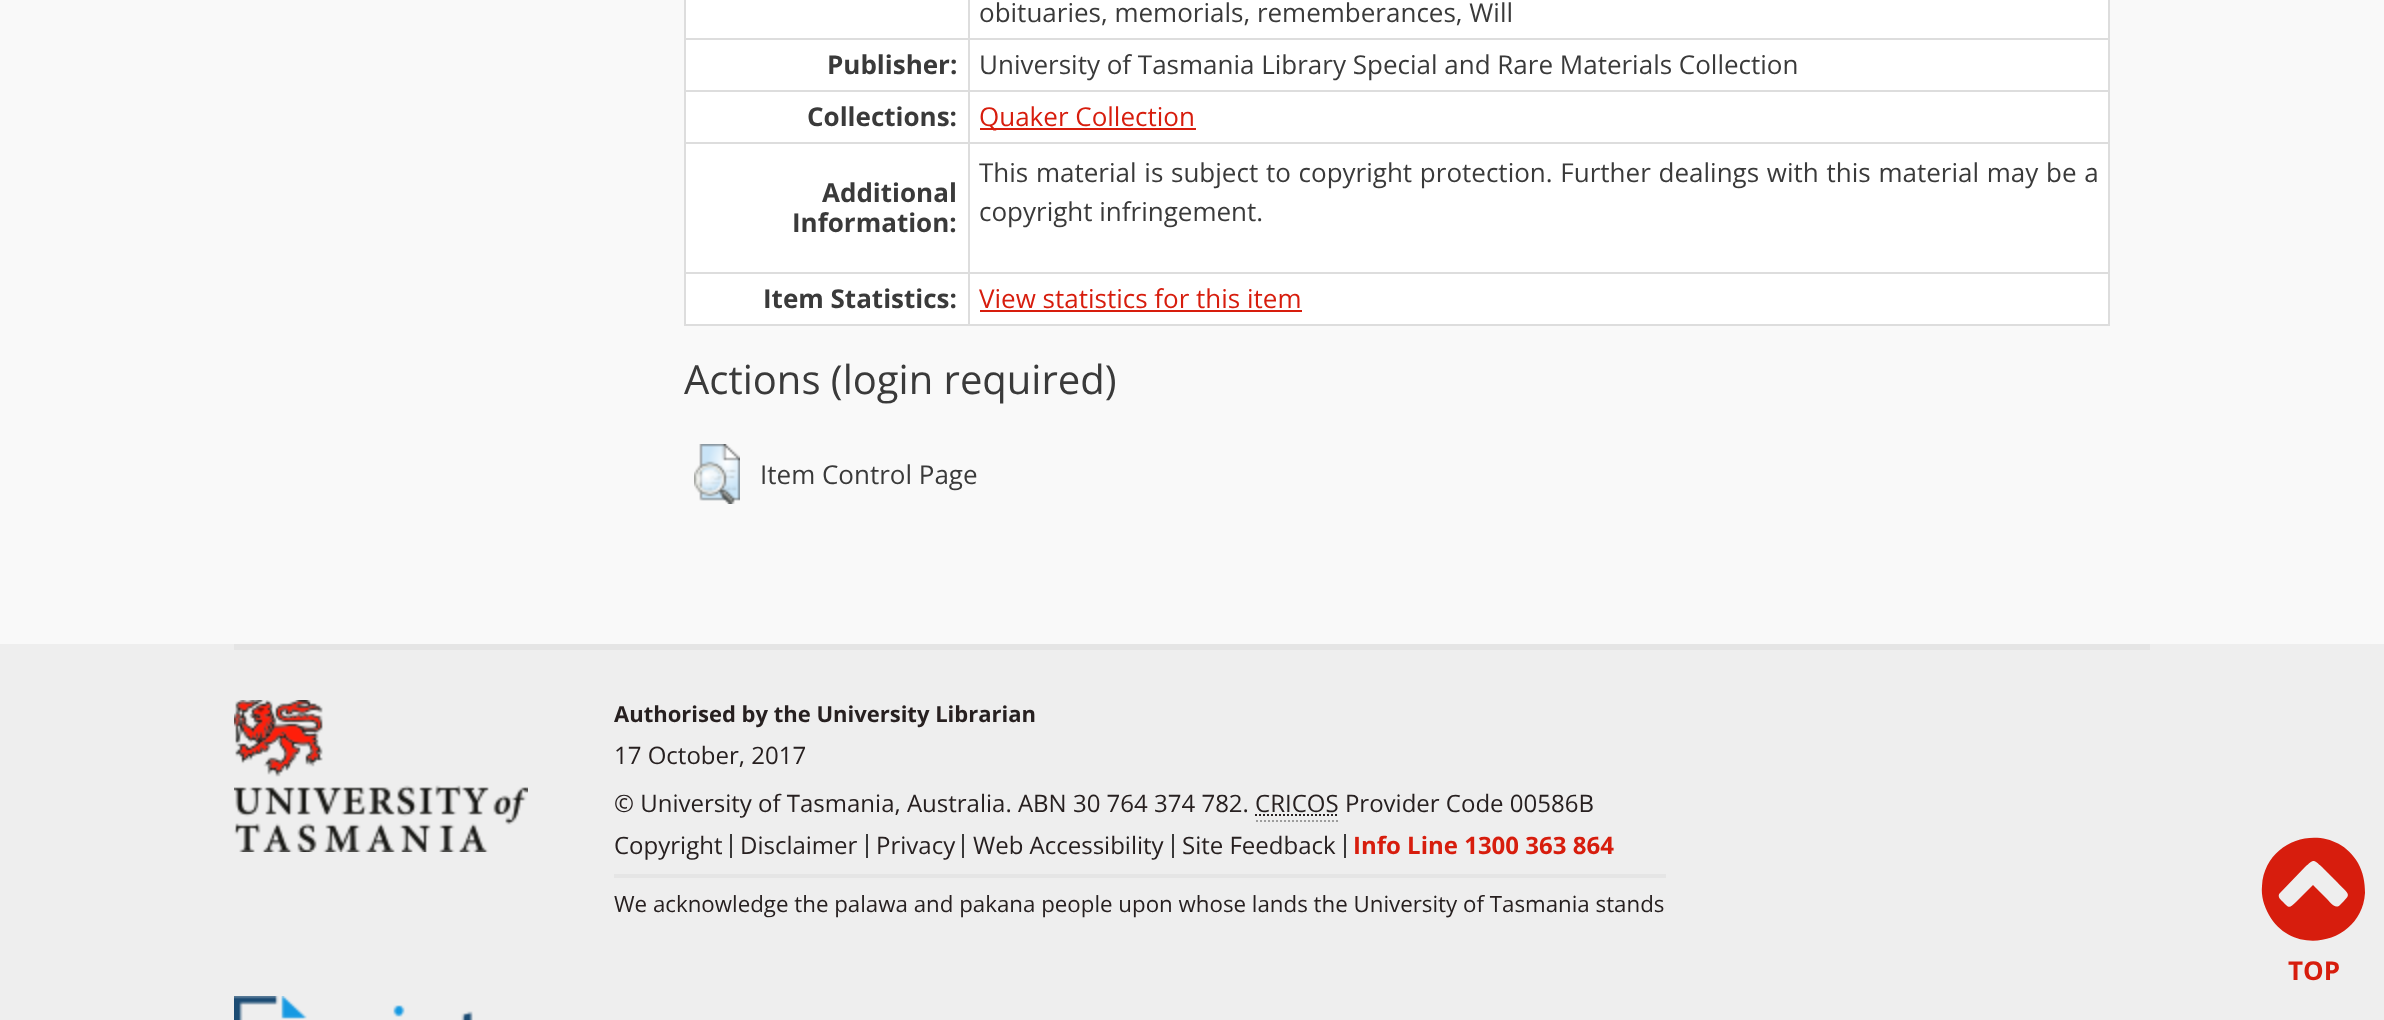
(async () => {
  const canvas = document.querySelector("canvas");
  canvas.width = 2384;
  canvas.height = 1020;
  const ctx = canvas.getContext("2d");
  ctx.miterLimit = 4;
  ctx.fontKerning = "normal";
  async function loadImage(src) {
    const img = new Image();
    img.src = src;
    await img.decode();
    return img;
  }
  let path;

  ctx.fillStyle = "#f9f9f9";
  ctx.fillRect(0, 0, 2384, 1020);
  for (const [x, y, w, h, color] of [
    [686, 0, 1422, 324, "#ffffff"],
    [2108, 0, 2, 326, "#dddddd"],
    [684, 324, 1426, 2, "#dddddd"],
    [684, 0, 2, 38, "#dddddd"],
    [968, 0, 2, 38, "#dddddd"],
    [684, 38, 1424, 2, "#dddddd"],
    [684, 38, 2, 52, "#dddddd"],
    [968, 38, 2, 52, "#dddddd"],
    [684, 90, 1424, 2, "#dddddd"],
    [684, 90, 2, 52, "#dddddd"],
    [968, 90, 2, 52, "#dddddd"],
    [980, 128, 216, 2, "#d71d0d"],
    [684, 142, 1424, 2, "#dddddd"],
    [684, 142, 2, 130, "#dddddd"],
    [968, 142, 2, 130, "#dddddd"],
    [684, 272, 1424, 2, "#dddddd"],
    [684, 272, 2, 52, "#dddddd"],
    [968, 272, 2, 52, "#dddddd"],
    [980, 310, 322, 2, "#d71d0d"],
  ]) {
    ctx.fillStyle = color;
    ctx.fillRect(x, y, w, h);
  }
  ctx.drawImage(await loadImage("img/1.png"), 694, 444, 46, 60);
  ctx.fillStyle = "#eeeeee";
  ctx.fillRect(0, 644, 2384, 376);
  ctx.fillStyle = "#d71d0d";
  path = new Path2D("M2340 905C2352 893 2350 896 2337 882L2322 867C2313 859 2314 859 2305 867L2280 893C2277 896 2280 899 2282 901C2289 908 2289 909 2296 902L2313 885L2327 899C2329 901 2335 910 2340 905ZM2358 863C2363 872 2365 882 2365 893C2362 943 2294 959 2269 915C2264 906 2261 896 2262 886C2265 835 2333 820 2358 863Z");
  ctx.fill(path);
  ctx.fillStyle = "#e5e5e5";
  ctx.fillRect(234, 644, 1916, 6);
  ctx.drawImage(await loadImage("img/2.png"), 234, 700, 294, 152);
  path = new Path2D("M1255 815H1338.5");
  ctx.strokeStyle = "#272020";
  ctx.lineWidth = 2;
  ctx.setLineDash([2, 2]);
  ctx.stroke(path);
  path = new Path2D("M1256 821H1338");
  ctx.strokeStyle = "#9d9d9d";
  ctx.stroke(path);
  for (const [x, y, w, h, color] of [
    [730, 834, 2, 24, "#3a3a3a"],
    [866, 834, 2, 24, "#3a3a3a"],
    [962, 834, 2, 24, "#3a3a3a"],
    [1172, 834, 2, 24, "#3a3a3a"],
    [1344, 834, 2, 24, "#3a3a3a"],
    [614, 874, 1052, 4, "#e5e5e5"],
  ]) {
    ctx.fillStyle = color;
    ctx.fillRect(x, y, w, h);
  }
  ctx.drawImage(await loadImage("img/3.png"), 234, 996, 239, 24);
  ctx.font = "26px Open Sans";
  ctx.fillStyle = "#3a3a3a";
  ctx.fillText("obituaries, memorials, rememberances, Will", 979, 22);
  ctx.font = "bold 26px Open Sans";
  ctx.fillText("Publisher:", 827, 74);
  ctx.font = "26px Open Sans";
  ctx.fillText("University of Tasmania Library Special and Rare Materials Collection", 979, 74);
  ctx.font = "bold 26px Open Sans";
  ctx.fillText("Collections:", 807, 126);
  ctx.font = "26px Open Sans";
  ctx.fillStyle = "#d71d0d";
  ctx.fillText("Quaker Collection", 979, 126);
  ctx.font = "bold 26px Open Sans";
  ctx.fillStyle = "#3a3a3a";
  ctx.fillText("Additional", 822, 202);
  ctx.fillText("Information:", 792, 232);
  ctx.wordSpacing = "1px";
  ctx.font = "26px Open Sans";
  ctx.fillText("This material is subject to copyright protection. Further dealings with this material may be a", 979, 182);
  ctx.wordSpacing = "0px";
  ctx.fillText("copyright infringement.", 979, 221);
  ctx.font = "bold 26px Open Sans";
  ctx.fillText("Item Statistics:", 763, 308);
  ctx.font = "26px Open Sans";
  ctx.fillStyle = "#d71d0d";
  ctx.fillText("View statistics for this item", 979, 308);
  ctx.font = "40px Open Sans";
  ctx.fillStyle = "#3a3a3a";
  ctx.fillText("Actions (login required)", 684, 394);
  ctx.font = "26px Open Sans";
  ctx.fillText("Item Control Page", 760, 484);
  ctx.font = "bold 26px Open Sans";
  ctx.fillStyle = "#d71d0d";
  ctx.fillText("TOP", 2288, 980);
  ctx.font = "bold 22px Open Sans";
  ctx.fillStyle = "#272020";
  ctx.fillText("Authorised by the University Librarian", 614, 722);
  ctx.font = "24px Open Sans";
  for (const [text, x, y] of [
    ["17 October, 2017", 614, 764],
    ["© University of Tasmania, Australia. ABN 30 764 374 782. CRICOS Provider Code 00586B", 614, 812],
    ["Copyright", 614, 854],
    ["Disclaimer", 740, 854],
    ["Privacy", 876, 854],
    ["Web Accessibility", 973, 854],
    ["Site Feedback", 1182, 854],
  ]) {
    ctx.fillText(text, x, y);
  }
  ctx.font = "bold 24px Open Sans";
  ctx.fillStyle = "#d71d0d";
  ctx.fillText("Info Line 1300 363 864", 1353, 854);
  ctx.font = "22.3px Open Sans";
  ctx.fillStyle = "#272020";
  ctx.fillText("We acknowledge the palawa and pakana people upon whose lands the University of Tasmania stands", 614, 912);
})();
